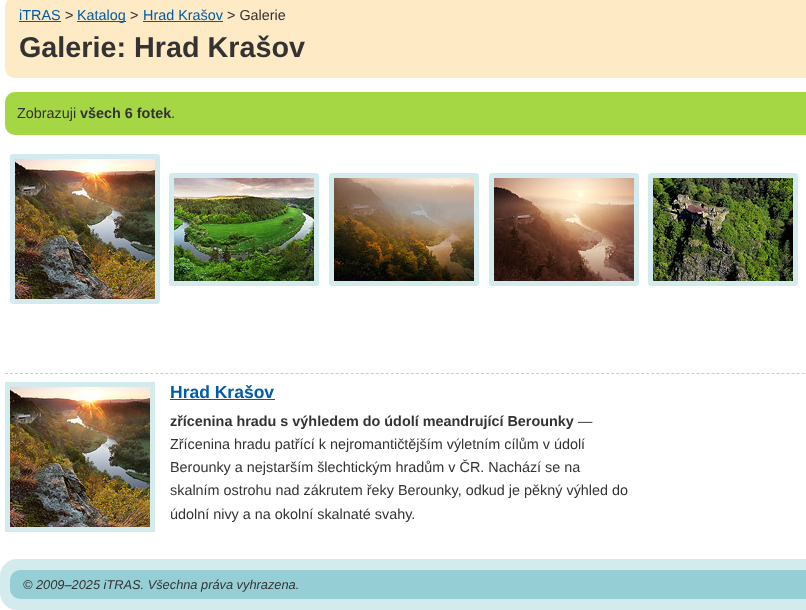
(async () => {
  const canvas = document.querySelector("canvas");
  canvas.width = 806;
  canvas.height = 610;
  const ctx = canvas.getContext("2d");
  ctx.miterLimit = 4;
  ctx.fontKerning = "normal";
  async function loadImage(src) {
    const img = new Image();
    img.src = src;
    await img.decode();
    return img;
  }
  let path;

  ctx.fillStyle = "#ffffff";
  ctx.fillRect(0, 0, 806, 610);
  ctx.fillStyle = "#feeac4";
  ctx.beginPath();
  ctx.roundRect(5, -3, 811, 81, 10);
  ctx.fill();
  for (const [x, y, w, h, color] of [
    [19, 21, 42, 1, "#005cab"],
    [77, 21, 49, 1, "#005cab"],
    [143, 21, 80, 1, "#005cab"],
  ]) {
    ctx.fillStyle = color;
    ctx.fillRect(x, y, w, h);
  }
  ctx.fillStyle = "#a5d643";
  ctx.beginPath();
  ctx.roundRect(5, 92, 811, 43, 10);
  ctx.fill();
  ctx.beginPath();
  ctx.roundRect(12.5, 156.5, 145, 145, 0.5);
  ctx.strokeStyle = "#d4ebee";
  ctx.lineWidth = 5;
  ctx.stroke();
  ctx.drawImage(await loadImage("img/1.png"), 15, 159, 140, 140);
  ctx.beginPath();
  ctx.roundRect(171.5, 175.5, 145, 108, 0.5);
  ctx.stroke();
  ctx.beginPath();
  ctx.roundRect(331.5, 175.5, 145, 108, 0.5);
  ctx.stroke();
  ctx.beginPath();
  ctx.roundRect(491.5, 175.5, 145, 108, 0.5);
  ctx.stroke();
  ctx.beginPath();
  ctx.roundRect(650.5, 175.5, 145, 108, 0.5);
  ctx.stroke();
  ctx.drawImage(await loadImage("img/2.png"), 174, 178, 140, 103);
  ctx.drawImage(await loadImage("img/3.png"), 334, 178, 140, 103);
  ctx.drawImage(await loadImage("img/4.png"), 494, 178, 140, 103);
  ctx.drawImage(await loadImage("img/5.png"), 653, 178, 140, 103);
  path = new Path2D("M5 373.5H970");
  ctx.strokeStyle = "#cccccc";
  ctx.lineWidth = 1;
  ctx.setLineDash([3, 2.01]);
  ctx.stroke(path);
  ctx.strokeStyle = "#d4ebee";
  ctx.lineWidth = 5;
  ctx.setLineDash([]);
  ctx.strokeRect(7.5, 384.5, 145, 145);
  ctx.drawImage(await loadImage("img/1.png"), 10, 387, 140, 140);
  ctx.fillStyle = "#005cab";
  ctx.fillRect(170, 399, 105, 1);
  ctx.fillStyle = "#d4ebee";
  ctx.beginPath();
  ctx.roundRect(0, 559, 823, 51, 17);
  ctx.fill();
  ctx.fillStyle = "#96ced6";
  ctx.beginPath();
  ctx.roundRect(10, 570, 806, 29, 10);
  ctx.fill();
  ctx.font = "14.4px Liberation Sans";
  ctx.fillStyle = "#005cab";
  ctx.fillText("iTRAS", 19, 20);
  ctx.fillStyle = "#333333";
  ctx.fillText(">", 65, 20);
  ctx.fillStyle = "#005cab";
  ctx.fillText("Katalog", 77, 20);
  ctx.fillStyle = "#333333";
  ctx.fillText(">", 130, 20);
  ctx.fillStyle = "#005cab";
  ctx.fillText("Hrad Krašov", 143, 20);
  ctx.fillStyle = "#333333";
  ctx.fillText("> Galerie", 227, 20);
  ctx.font = "bold 28.75px Liberation Sans";
  ctx.fillText("Galerie: Hrad Krašov", 19, 57);
  ctx.font = "14.4px Liberation Sans";
  ctx.fillText("Zobrazuji", 17, 118);
  ctx.font = "bold 14.4px Liberation Sans";
  ctx.fillText("všech 6 fotek", 80, 118);
  ctx.font = "14.4px Liberation Sans";
  ctx.fillText(".", 171, 118);
  ctx.font = "bold 17.5px Liberation Sans";
  ctx.fillStyle = "#005cab";
  ctx.fillText("Hrad Krašov", 170, 398);
  ctx.font = "bold 14.4px Liberation Sans";
  ctx.fillStyle = "#333333";
  ctx.fillText("zřícenina hradu s výhledem do údolí meandrující Berounky", 170, 426);
  ctx.font = "14.4px Liberation Sans";
  for (const [text, x, y] of [
    ["—", 578, 426],
    ["Zřícenina hradu patřící k nejromantičtějším výletním cílům v údolí", 170, 449],
    ["Berounky a nejstarším šlechtickým hradům v ČR. Nachází se na", 170, 472],
    ["skalním ostrohu nad zákrutem řeky Berounky, odkud je pěkný výhled do", 170, 495],
    ["údolní nivy a na okolní skalnaté svahy.", 170, 519],
  ]) {
    ctx.fillText(text, x, y);
  }
  ctx.font = "italic 12.8px Liberation Sans";
  ctx.fillText("© 2009–2025 iTRAS. Všechna práva vyhrazena.", 23, 589);
})();
